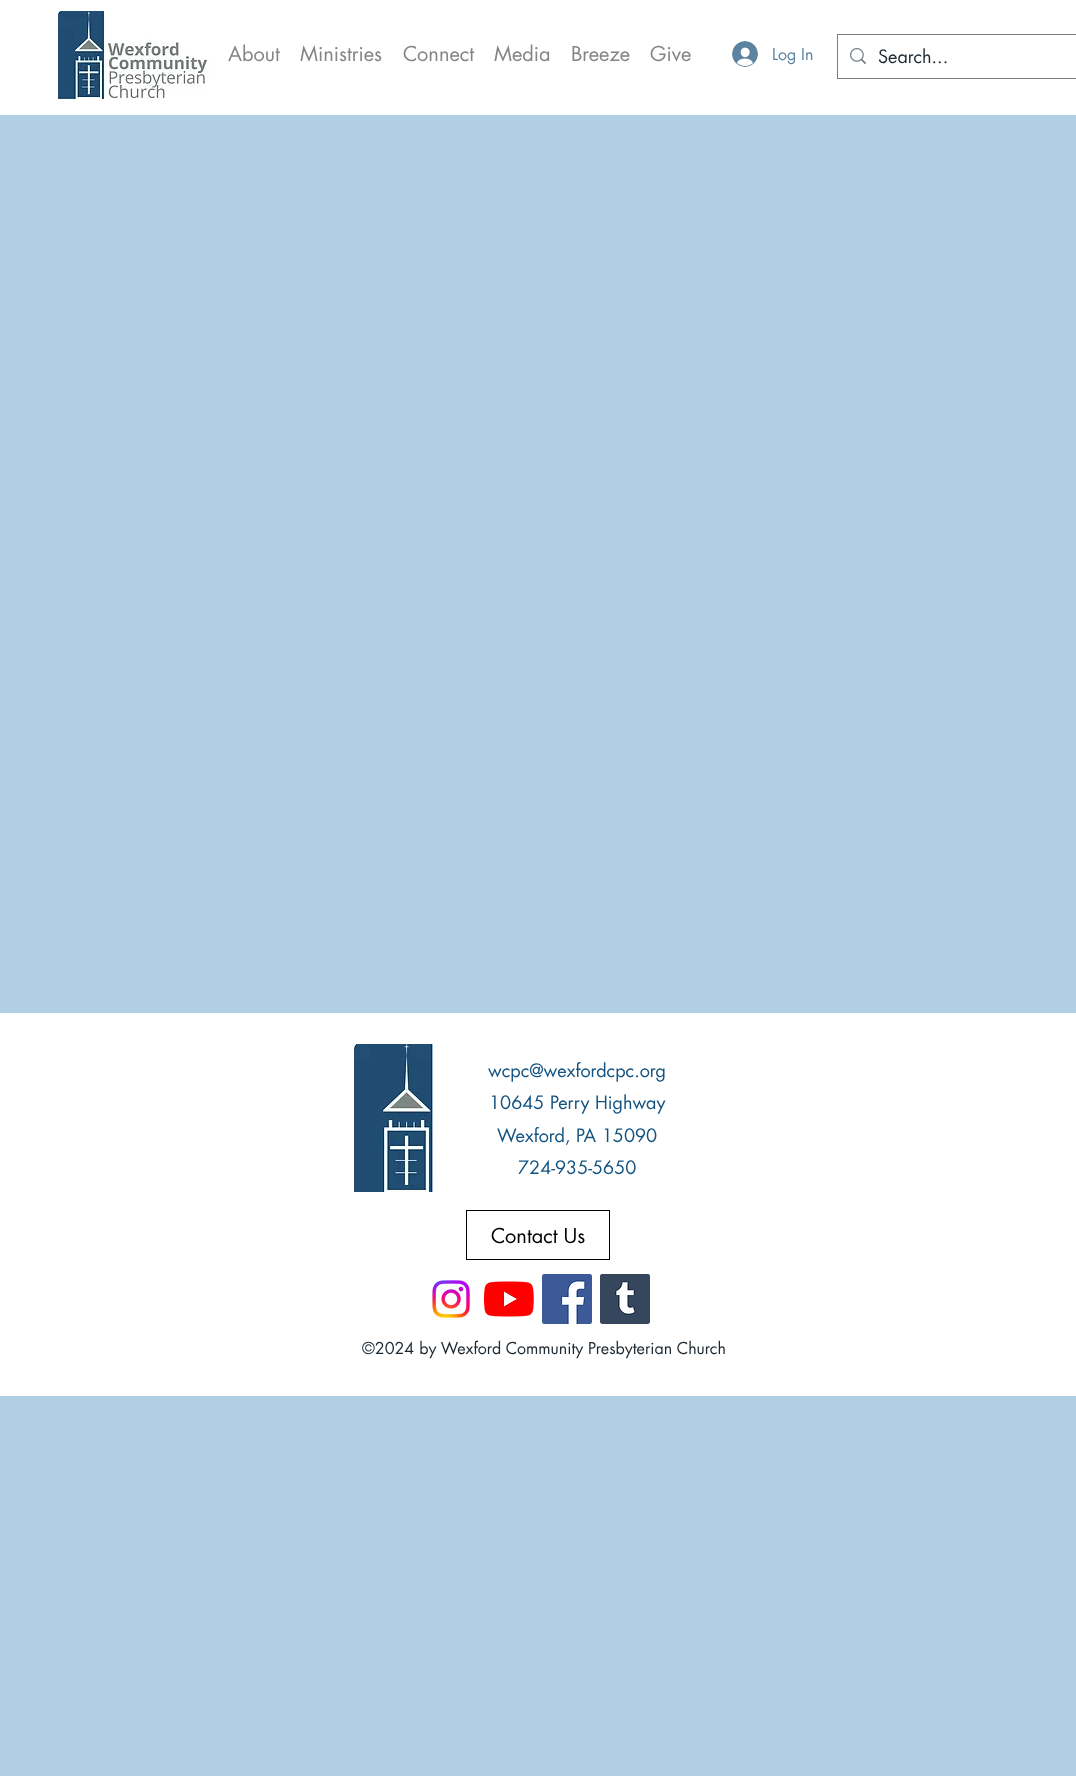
(async () => {
  const canvas = document.querySelector("canvas");
  canvas.width = 1076;
  canvas.height = 1776;
  const ctx = canvas.getContext("2d");
  ctx.miterLimit = 4;
  ctx.fontKerning = "normal";
  async function loadImage(src) {
    const img = new Image();
    img.src = src;
    await img.decode();
    return img;
  }

  ctx.fillStyle = "#b0cfe5";
  ctx.fillRect(0, 0, 1076, 1776);
  ctx.fillStyle = "#ffffff";
  ctx.fillRect(0, 0, 1076, 115);
  ctx.drawImage(await loadImage("img/1.png"), 58, 11, 152, 89);
  ctx.drawImage(await loadImage("img/2.png"), 732, 41, 26, 26);
  ctx.strokeStyle = "#777f85";
  ctx.strokeRect(837.5, 34.5, 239, 44);
  ctx.drawImage(await loadImage("img/3.png"), 850, 48, 16, 17);
  ctx.fillRect(0, 1013, 1076, 383);
  ctx.drawImage(await loadImage("img/4.png"), 354, 1044, 79, 148);
  ctx.strokeStyle = "#000000";
  ctx.strokeRect(466.5, 1210.5, 143, 49);
  ctx.drawImage(await loadImage("img/5.png"), 432, 1280, 38, 38);
  ctx.drawImage(await loadImage("img/6.png"), 484, 1281, 50, 36);
  ctx.drawImage(await loadImage("img/7.png"), 542, 1274, 50, 50);
  ctx.drawImage(await loadImage("img/8.png"), 600, 1274, 50, 50);
  ctx.font = "20px futura";
  ctx.fillStyle = "#858585";
  for (const [text, x, y] of [
    ["About", 228, 61],
    ["Ministries", 300, 61],
    ["Connect", 403, 61],
    ["Media", 494, 61],
    ["Breeze", 571, 61],
    ["Give", 650, 61],
  ]) {
    ctx.fillText(text, x, y);
  }
  ctx.font = "16px futura";
  ctx.fillStyle = "#5c84a1";
  ctx.fillText("Log In", 772, 60);
  ctx.font = "18px futura";
  ctx.fillStyle = "#1c2933";
  ctx.fillText("Search...", 878, 63);
  ctx.fillStyle = "#135381";
  for (const [text, x, y] of [
    ["wcpc@wexfordcpc.org", 488, 1077],
    ["10645 Perry Highway", 489, 1109],
    ["Wexford, PA 15090", 497, 1142],
    ["724-935-5650", 518, 1174],
  ]) {
    ctx.fillText(text, x, y);
  }
  ctx.font = "20px futura";
  ctx.fillStyle = "#000000";
  ctx.fillText("Contact Us", 491, 1243);
  ctx.font = "16px futura";
  ctx.fillStyle = "#1c2933";
  ctx.fillText("©2024 by Wexford Community Presbyterian Church", 362, 1354);
})();
